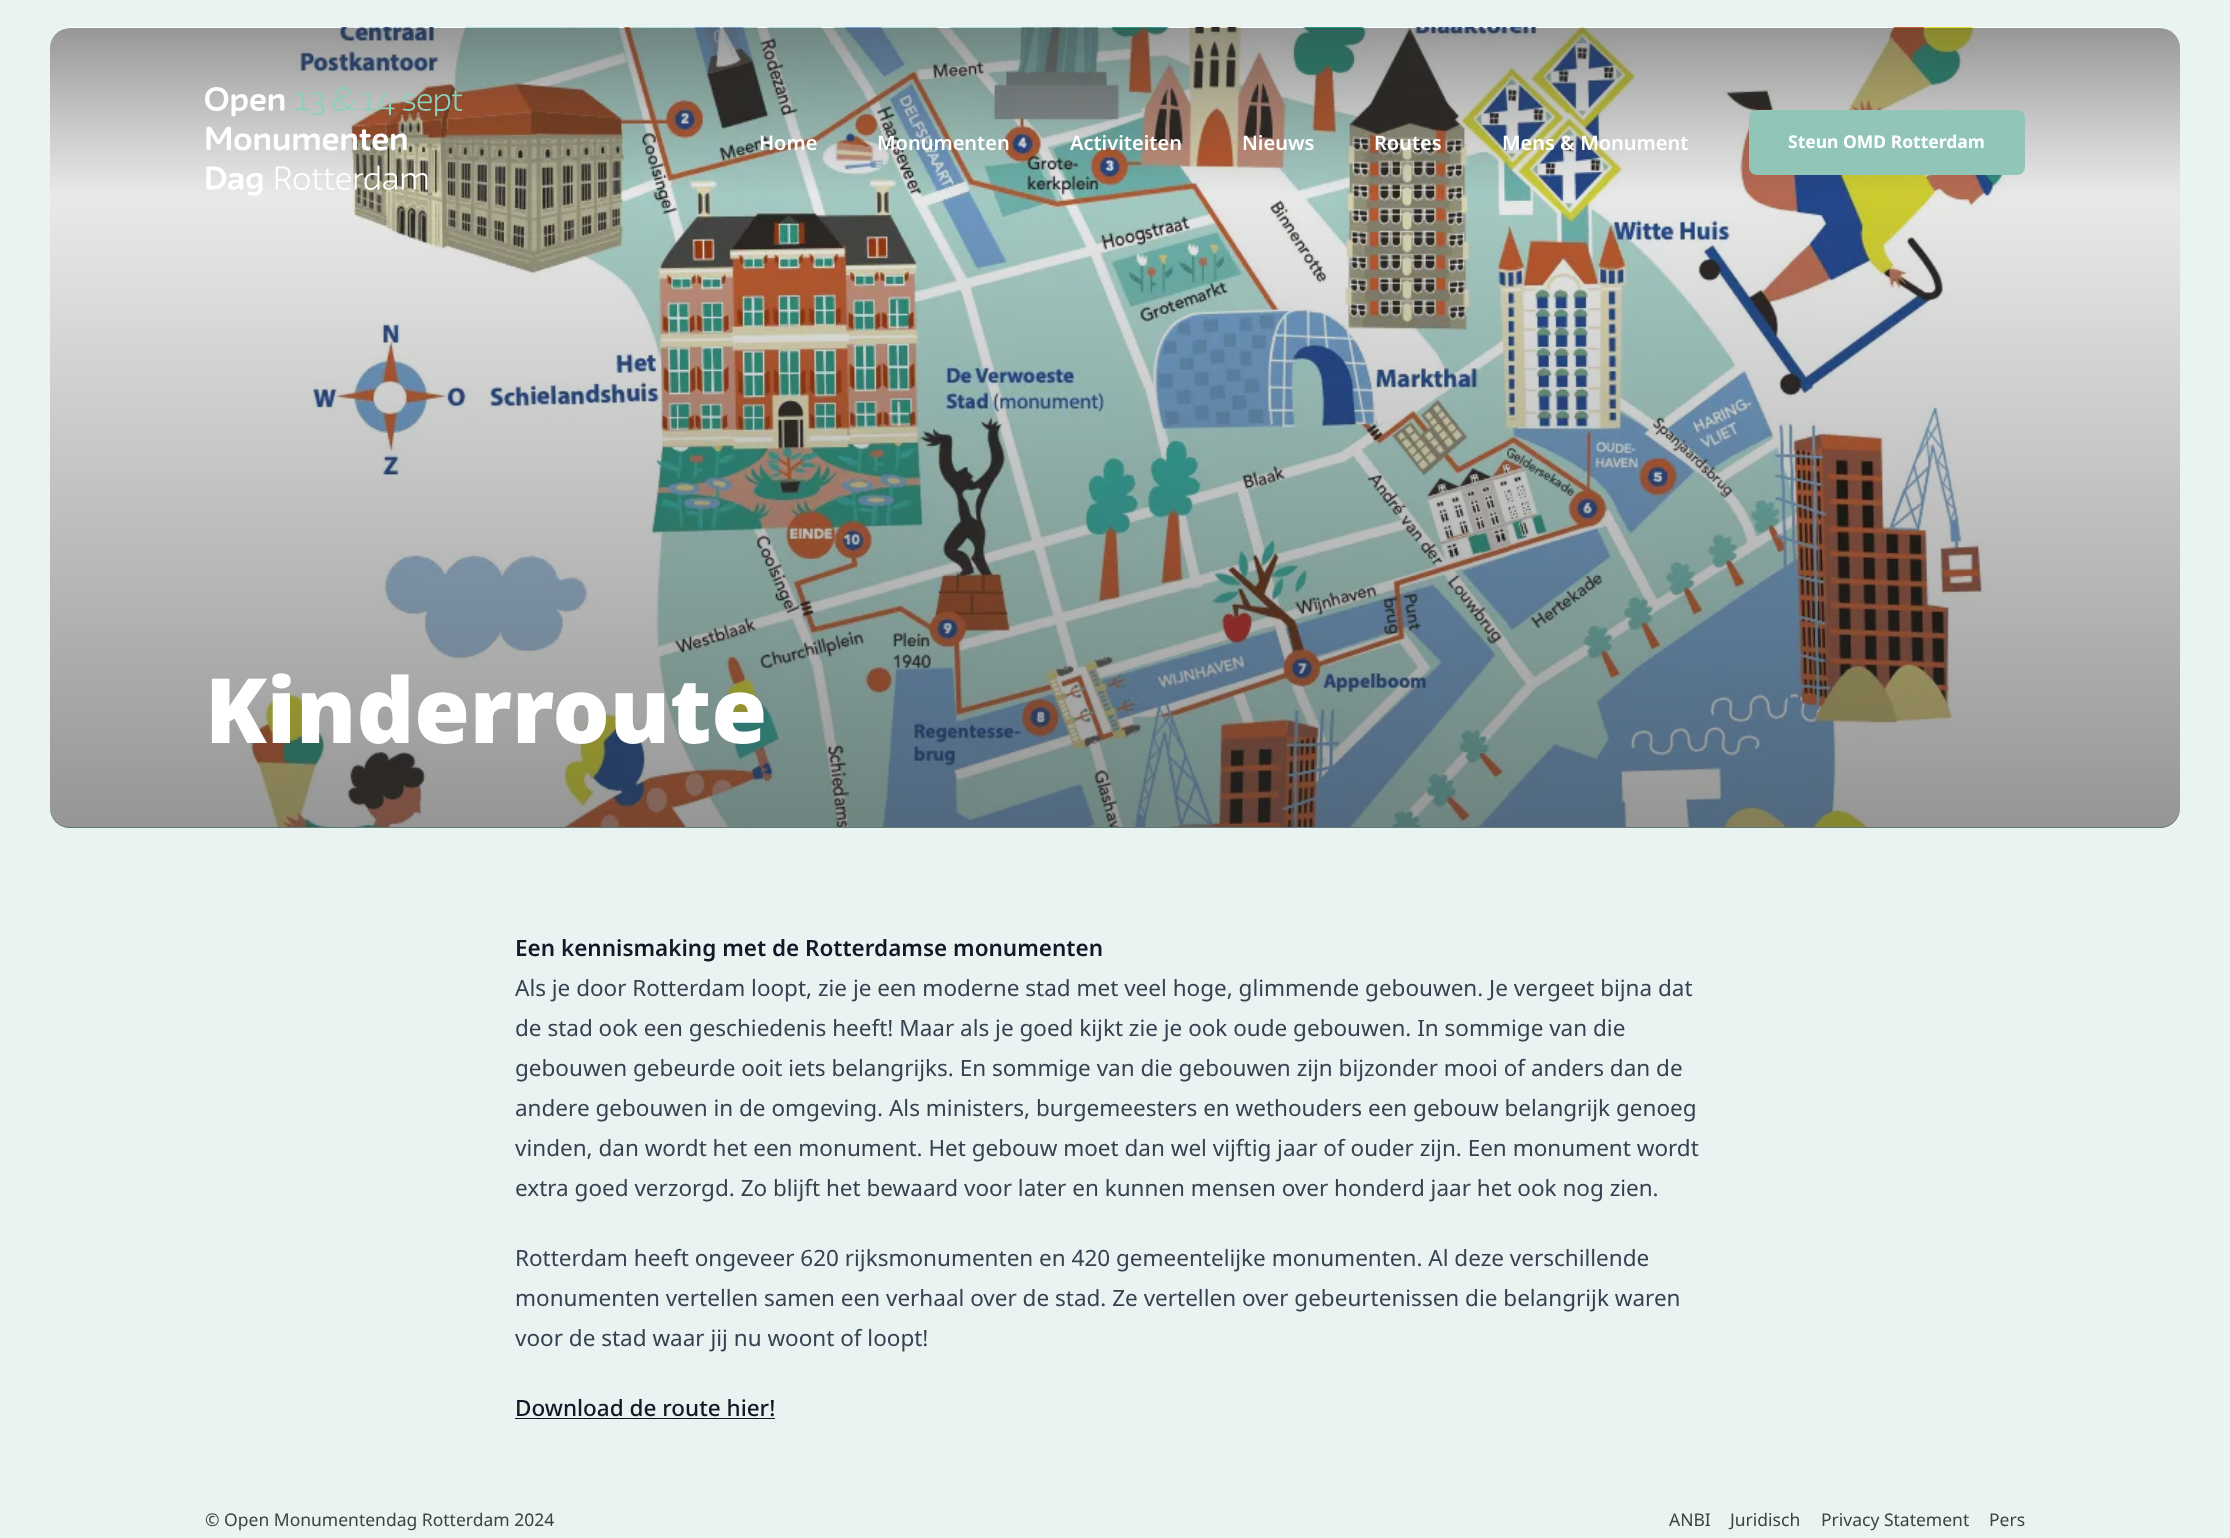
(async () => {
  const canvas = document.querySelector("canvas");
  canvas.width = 2230;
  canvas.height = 1538;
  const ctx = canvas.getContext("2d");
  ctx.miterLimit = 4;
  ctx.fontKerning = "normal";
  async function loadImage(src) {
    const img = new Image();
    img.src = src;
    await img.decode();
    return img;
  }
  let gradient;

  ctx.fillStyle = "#e9f3f1";
  ctx.fillRect(0, 0, 2230, 1538);
  ctx.fillStyle = "#90c5b8";
  ctx.beginPath();
  ctx.roundRect(50, 28, 2130, 800, 20);
  ctx.fill();
  ctx.drawImage(await loadImage("img/2.png"), 50, 27, 2130, 800);
  gradient = ctx.createLinearGradient(1115, 828, 1115, 28);
  gradient.addColorStop(0, "rgba(45, 45, 45, 0.5)");
  gradient.addColorStop(1, "rgba(45, 45, 45, 0)");
  ctx.fillStyle = gradient;
  ctx.beginPath();
  ctx.roundRect(50, 28, 2130, 800, 20);
  ctx.fill();
  gradient = ctx.createLinearGradient(1115, 27, 1115, 196);
  gradient.addColorStop(0, "rgba(45, 45, 45, 0.5)");
  gradient.addColorStop(1, "rgba(45, 45, 45, 0)");
  ctx.fillStyle = gradient;
  ctx.beginPath();
  ctx.roundRect(50, 28, 2130, 168, [20, 20, 0, 0]);
  ctx.fill();
  ctx.drawImage(await loadImage("img/1.png"), 205, 87, 258, 109);
  ctx.fillStyle = "#90c5b8";
  ctx.beginPath();
  ctx.roundRect(1749, 110, 276, 65, 8);
  ctx.fill();
  ctx.fillStyle = "#111827";
  ctx.fillRect(515, 1418, 260, 1);
  ctx.font = "600 20px Noto Sans";
  ctx.fillStyle = "#ffffff";
  for (const [text, x, y] of [
    ["Home", 759, 150],
    ["Monumenten", 877, 150],
    ["Activiteiten", 1070, 150],
    ["Nieuws", 1242, 150],
    ["Routes", 1374, 150],
    ["Mens & Monument", 1502, 150],
  ]) {
    ctx.fillText(text, x, y);
  }
  ctx.font = "bold 17.5px Noto Sans";
  ctx.fillText("Steun OMD Rotterdam", 1788, 148);
  ctx.font = "900 90px Noto Sans";
  ctx.fillText("Kinderroute", 205, 743);
  ctx.font = "600 22.5px Noto Sans";
  ctx.fillStyle = "#111827";
  ctx.fillText("Een kennismaking met de Rotterdamse monumenten", 515, 956);
  ctx.font = "22.5px Noto Sans";
  ctx.fillStyle = "#374151";
  for (const [text, x, y] of [
    ["Als je door Rotterdam loopt, zie je een moderne stad met veel hoge, glimmende gebouwen. Je vergeet bijna dat", 515, 996],
    ["de stad ook een geschiedenis heeft! Maar als je goed kijkt zie je ook oude gebouwen. In sommige van die", 515, 1036],
    ["gebouwen gebeurde ooit iets belangrijks. En sommige van die gebouwen zijn bijzonder mooi of anders dan de", 515, 1076],
    ["andere gebouwen in de omgeving. Als ministers, burgemeesters en wethouders een gebouw belangrijk genoeg", 515, 1116],
    ["vinden, dan wordt het een monument. Het gebouw moet dan wel vijftig jaar of ouder zijn. Een monument wordt", 515, 1156],
    ["extra goed verzorgd. Zo blijft het bewaard voor later en kunnen mensen over honderd jaar het ook nog zien.", 515, 1196],
    ["Rotterdam heeft ongeveer 620 rijksmonumenten en 420 gemeentelijke monumenten. Al deze verschillende", 515, 1266],
    ["monumenten vertellen samen een verhaal over de stad. Ze vertellen over gebeurtenissen die belangrijk waren", 515, 1306],
    ["voor de stad waar jij nu woont of loopt!", 515, 1346],
  ]) {
    ctx.fillText(text, x, y);
  }
  ctx.font = "500 22.5px Noto Sans";
  ctx.fillStyle = "#111827";
  ctx.fillText("Download de route hier!", 515, 1416);
  ctx.font = "17.5px Noto Sans";
  ctx.fillStyle = "#404141";
  for (const [text, x, y] of [
    ["© Open Monumentendag Rotterdam 2024", 205, 1526],
    ["ANBI", 1669, 1526],
    ["Juridisch", 1730, 1526],
    ["Privacy Statement", 1821, 1526],
    ["Pers", 1989, 1526],
  ]) {
    ctx.fillText(text, x, y);
  }
})();
